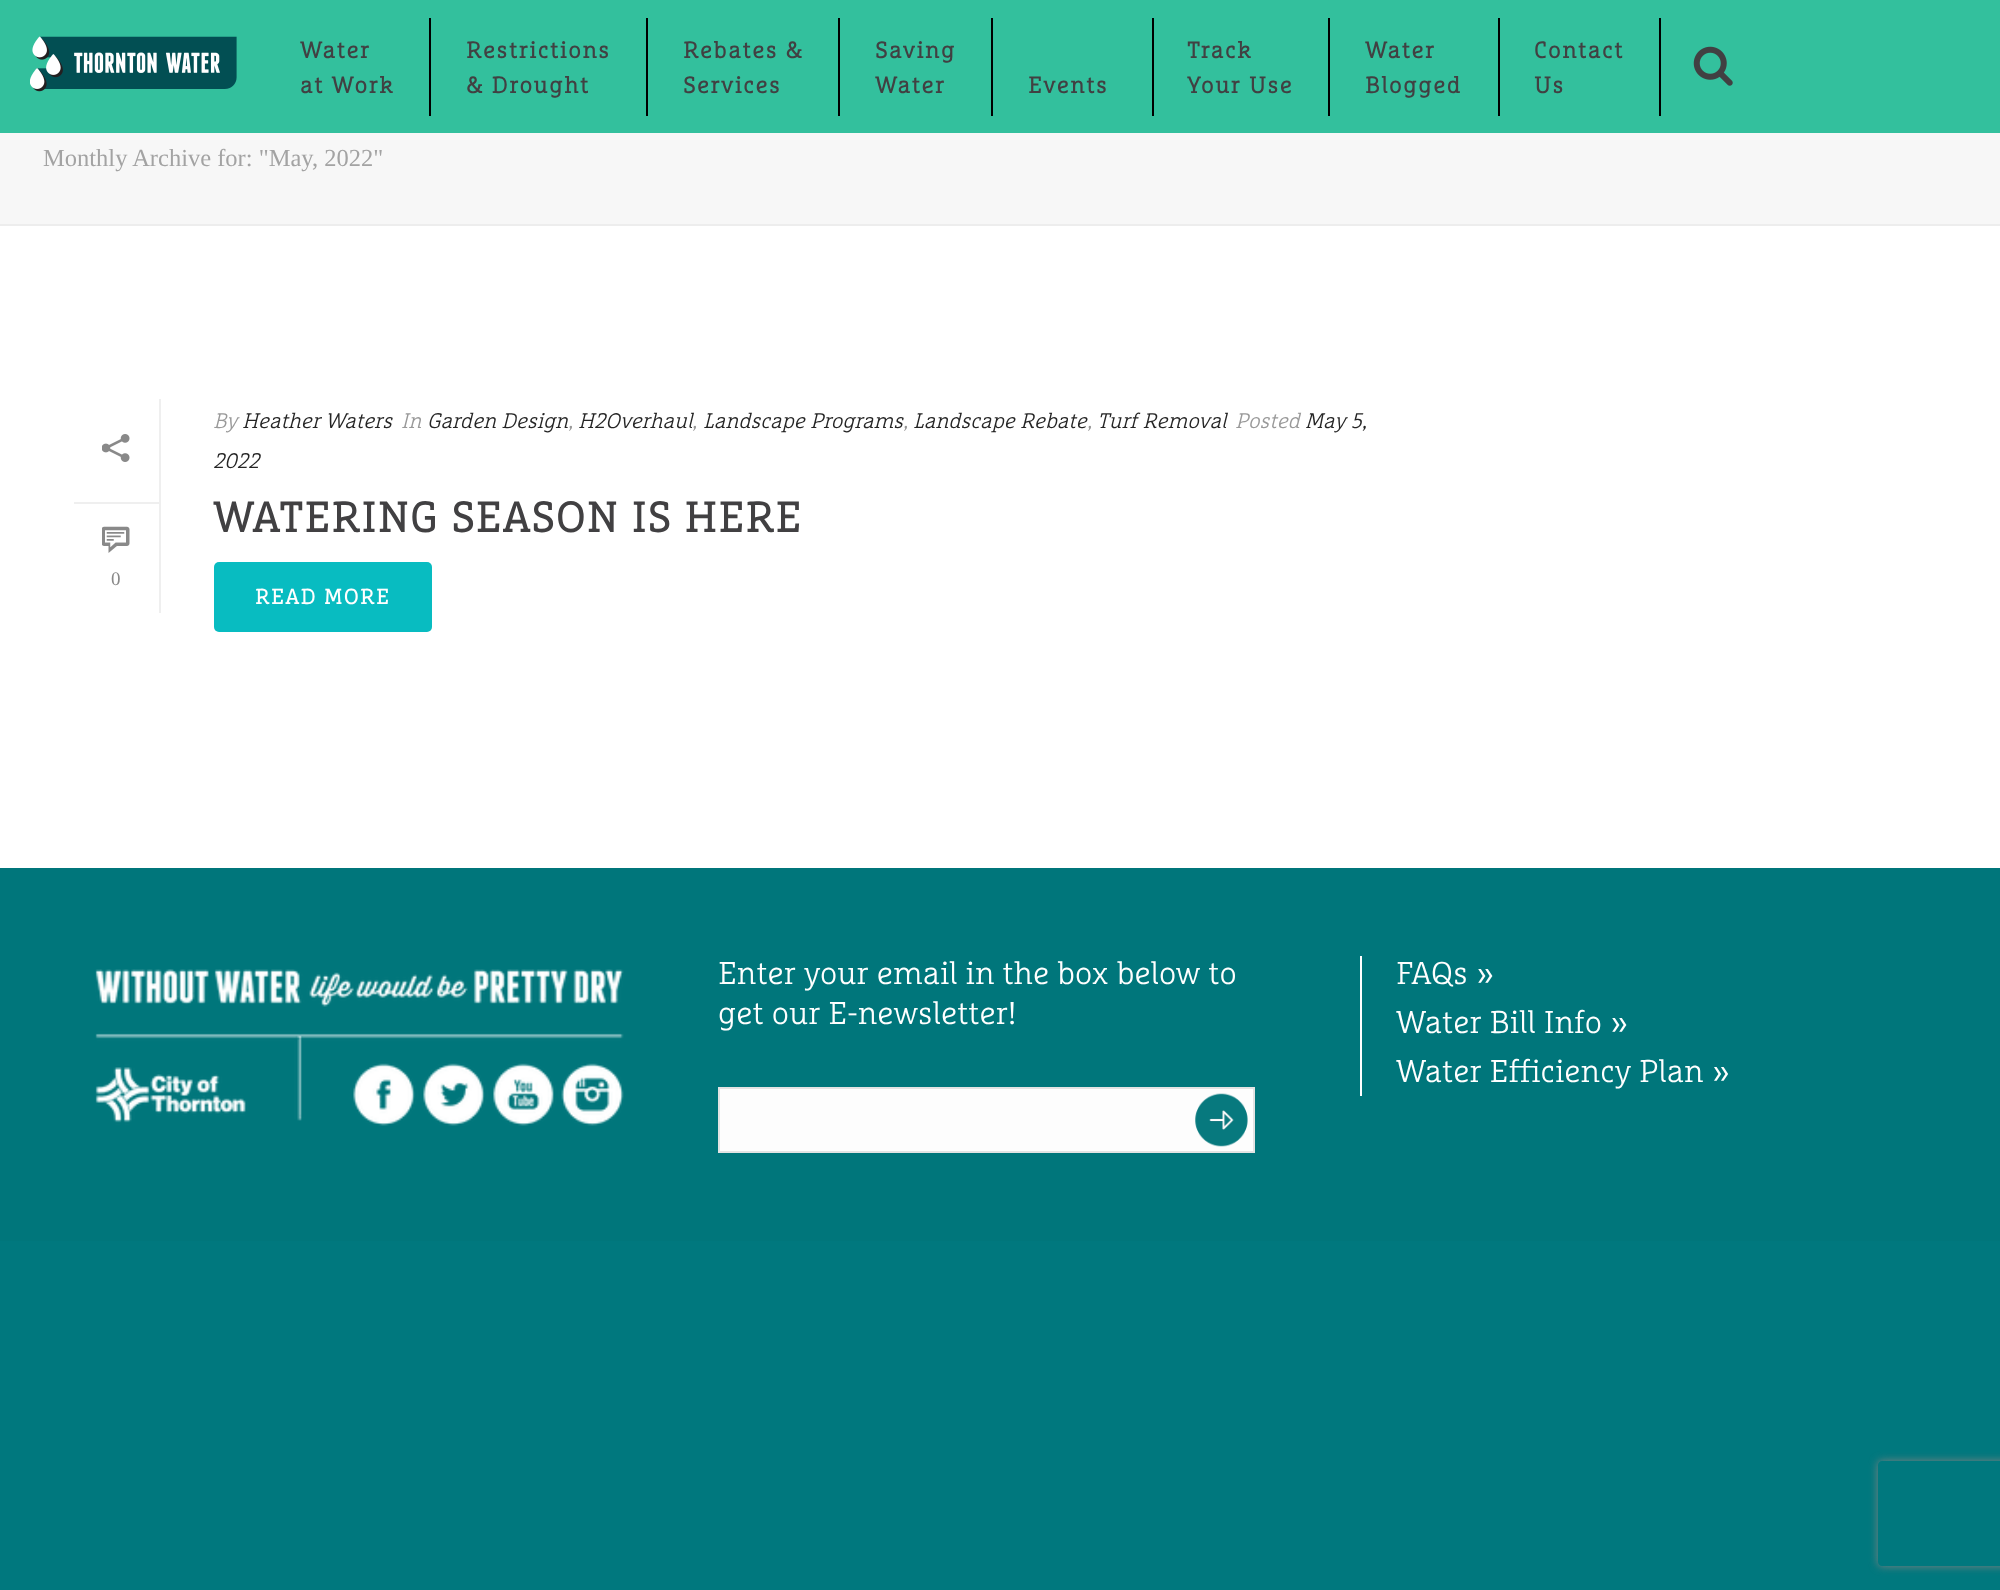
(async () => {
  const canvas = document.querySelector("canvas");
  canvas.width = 2000;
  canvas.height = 1590;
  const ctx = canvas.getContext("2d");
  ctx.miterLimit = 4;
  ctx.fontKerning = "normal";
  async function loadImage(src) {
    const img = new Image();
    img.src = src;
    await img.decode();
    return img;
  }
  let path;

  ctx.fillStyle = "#00787e";
  ctx.fillRect(0, 0, 2000, 1590);
  for (const [x, y, w, h, color] of [
    [0, 133, 2000, 91, "#f7f7f7"],
    [0, 224, 2000, 2, "#ededed"],
    [0, 0, 2000, 133, "#33c09d"],
  ]) {
    ctx.fillStyle = color;
    ctx.fillRect(x, y, w, h);
  }
  ctx.drawImage(await loadImage("img/1.png"), 30, 36, 207, 56);
  for (const [x, y, w, h, color] of [
    [429, 18, 2, 98, "#000000"],
    [646, 18, 2, 98, "#000000"],
    [838, 18, 2, 98, "#000000"],
    [991, 18, 2, 98, "#000000"],
    [1152, 18, 2, 98, "#000000"],
    [1328, 18, 2, 98, "#000000"],
    [1498, 18, 2, 98, "#000000"],
    [1659, 18, 2, 98, "#000000"],
  ]) {
    ctx.fillStyle = color;
    ctx.fillRect(x, y, w, h);
  }
  ctx.drawImage(await loadImage("img/2.png"), 1693, 46, 40, 40);
  for (const [x, y, w, h, color] of [
    [0, 226, 2000, 642, "#ffffff"],
    [159, 399, 2, 214, "#efefef"],
    [74, 502, 85, 2, "#efefef"],
  ]) {
    ctx.fillStyle = color;
    ctx.fillRect(x, y, w, h);
  }
  ctx.drawImage(await loadImage("img/3.png"), 102, 434, 28, 28);
  ctx.drawImage(await loadImage("img/4.png"), 102, 526, 28, 27);
  ctx.fillStyle = "#08bcc1";
  ctx.beginPath();
  ctx.roundRect(214, 562, 218, 70, 5);
  ctx.fill();
  ctx.fillStyle = "#00767b";
  ctx.fillRect(0, 868, 2000, 373);
  ctx.drawImage(await loadImage("img/5.png"), 95, 969, 529, 157);
  ctx.fillStyle = "#fdfdfd";
  ctx.beginPath();
  ctx.rect(719, 1088, 535, 64);
  ctx.fill();
  ctx.strokeStyle = "#e3e3e3";
  ctx.lineWidth = 2;
  ctx.stroke();
  ctx.save();
  path = new Path2D("M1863 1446H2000V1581H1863ZM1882 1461H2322C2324 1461 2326 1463 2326 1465V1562C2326 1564 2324 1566 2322 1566H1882C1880 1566 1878 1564 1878 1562V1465C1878 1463 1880 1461 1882 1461Z");
  ctx.clip(path, "evenodd");
  ctx.fillStyle = "#808080";
  ctx.filter = "blur(4.5px)";
  ctx.beginPath();
  ctx.roundRect(1878, 1461, 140, 105, 4);
  ctx.fill();
  ctx.filter = "none";
  ctx.restore();
  ctx.drawImage(await loadImage("img/6.png"), 1195, 1093, 53, 54);
  ctx.fillStyle = "#ffffff";
  ctx.fillRect(1360, 956, 2, 140);
  ctx.letterSpacing = "1.75px";
  ctx.font = "bold 22.75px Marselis";
  ctx.fillStyle = "#414042";
  for (const [text, x, y] of [
    ["Water", 300, 58],
    ["at Work", 300, 93],
    ["Restrictions", 466, 58],
    ["& Drought", 466, 93],
    ["Rebates &", 683, 58],
    ["Services", 683, 93],
    ["Saving", 875, 58],
    ["Water", 875, 93],
    ["Events", 1028, 93],
    ["Track", 1187, 58],
    ["Your Use", 1187, 93],
    ["Water", 1365, 58],
    ["Blogged", 1365, 93],
    ["Contact", 1534, 58],
    ["Us", 1534, 93],
  ]) {
    ctx.fillText(text, x, y);
  }
  ctx.letterSpacing = "0px";
  ctx.font = "24.5px Liberation Serif";
  ctx.fillStyle = "#a3a3a3";
  ctx.fillText("Monthly Archive for: \"May, 2022\"", 43, 166);
  ctx.font = "19px Liberation Serif";
  ctx.fillStyle = "#898989";
  ctx.fillText("0", 111, 585);
  ctx.font = "italic 21px Marselis";
  ctx.fillStyle = "#999999";
  ctx.fillText("By", 213, 428);
  ctx.fillStyle = "#252525";
  ctx.fillText("Heather Waters", 242, 428);
  ctx.fillStyle = "#999999";
  ctx.fillText("In", 401, 428);
  ctx.fillStyle = "#252525";
  ctx.fillText("Garden Design", 427, 428);
  ctx.fillStyle = "#999999";
  ctx.fillText(",", 568, 428);
  ctx.fillStyle = "#252525";
  ctx.fillText("H2Overhaul", 578, 428);
  ctx.fillStyle = "#999999";
  ctx.fillText(",", 692, 428);
  ctx.fillStyle = "#252525";
  ctx.fillText("Landscape Programs", 703, 428);
  ctx.fillStyle = "#999999";
  ctx.fillText(",", 903, 428);
  ctx.fillStyle = "#252525";
  ctx.fillText("Landscape Rebate", 913, 428);
  ctx.fillStyle = "#999999";
  ctx.fillText(",", 1087, 428);
  ctx.fillStyle = "#252525";
  ctx.fillText("Turf Removal", 1097, 428);
  ctx.fillStyle = "#999999";
  ctx.fillText("Posted", 1235, 428);
  ctx.fillStyle = "#252525";
  ctx.fillText("May 5,", 1305, 428);
  ctx.fillText("2022", 213, 468);
  ctx.letterSpacing = "1.75px";
  ctx.font = "bold 42px Marselis";
  ctx.fillStyle = "#414042";
  ctx.fillText("WATERING SEASON IS HERE", 213, 532);
  ctx.font = "bold 21px Marselis";
  ctx.fillStyle = "#ffffff";
  ctx.fillText("READ MORE", 255, 604);
  ctx.letterSpacing = "0px";
  ctx.font = "31.5px Marselis";
  for (const [text, x, y] of [
    ["Enter your email in the box below to", 718, 984],
    ["get our E-newsletter!", 718, 1024],
    ["FAQs »", 1396, 984],
    ["Water Bill Info »", 1396, 1033],
    ["Water Efficiency Plan »", 1396, 1082],
  ]) {
    ctx.fillText(text, x, y);
  }
})();
